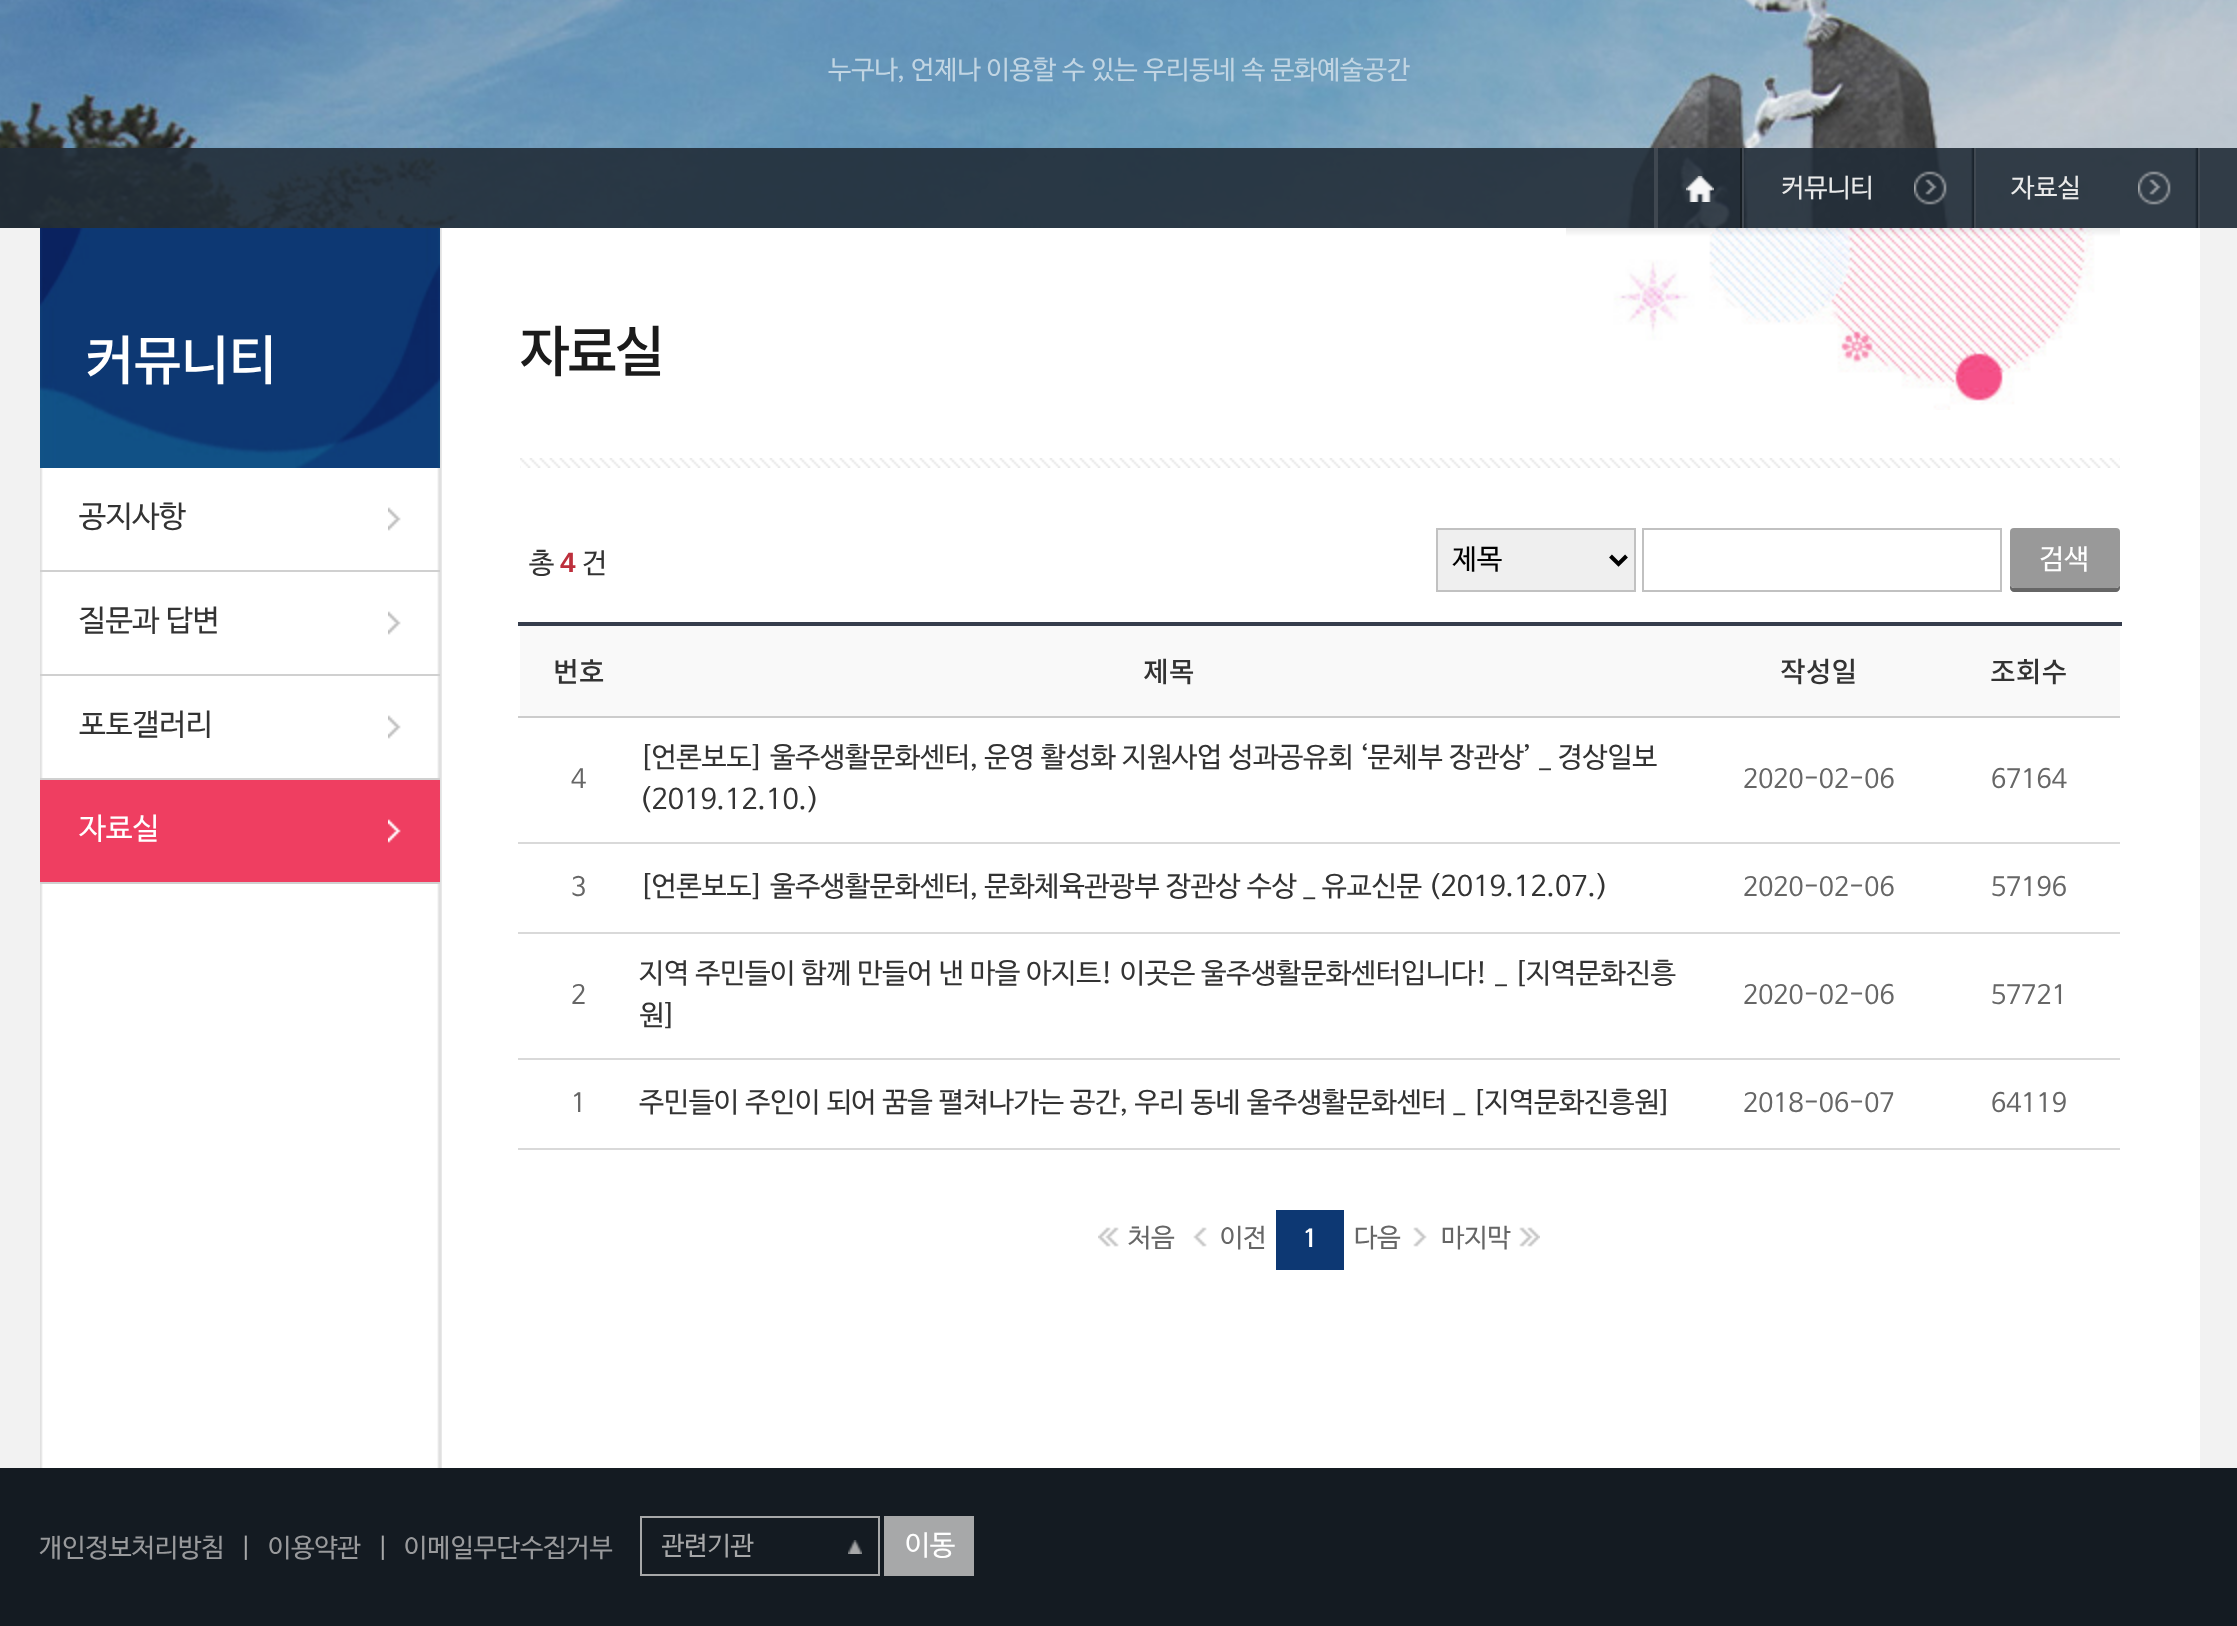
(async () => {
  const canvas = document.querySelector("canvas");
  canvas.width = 2237;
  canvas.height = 1626;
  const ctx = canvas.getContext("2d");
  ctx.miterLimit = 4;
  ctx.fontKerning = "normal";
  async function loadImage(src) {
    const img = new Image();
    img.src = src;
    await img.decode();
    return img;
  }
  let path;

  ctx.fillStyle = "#141b22";
  ctx.fillRect(0, 0, 2237, 1626);
  ctx.fillStyle = "#f2f2f2";
  ctx.fillRect(0, 228, 2237, 1240);
  ctx.drawImage(await loadImage("img/1.png"), 0, 0, 2237, 228);
  ctx.fillStyle = "#ffffff";
  ctx.fillRect(41, 228, 2159, 1240);
  ctx.drawImage(await loadImage("img/2.png"), 40, 228, 402, 1240);
  ctx.drawImage(await loadImage("img/3.png"), 40, 228, 400, 240);
  ctx.drawImage(await loadImage("img/4.png"), 388, 507, 13, 24);
  ctx.fillStyle = "#d0d0d0";
  ctx.fillRect(40, 570, 400, 2);
  ctx.drawImage(await loadImage("img/4.png"), 388, 611, 13, 24);
  ctx.fillRect(40, 674, 400, 2);
  ctx.drawImage(await loadImage("img/4.png"), 388, 715, 13, 24);
  ctx.fillRect(40, 778, 400, 2);
  ctx.fillStyle = "#ef3e61";
  ctx.fillRect(40, 780, 400, 102);
  ctx.drawImage(await loadImage("img/5.png"), 388, 819, 13, 24);
  ctx.fillStyle = "#d0d0d0";
  ctx.fillRect(40, 882, 400, 2);
  ctx.fillStyle = "rgba(33, 44, 55, 0.9)";
  ctx.fillRect(0, 148, 2237, 80);
  ctx.drawImage(await loadImage("img/6.png"), 1686, 176, 26, 26);
  ctx.fillStyle = "#161d22";
  ctx.fillRect(1740, 148, 2, 80);
  ctx.fillStyle = "#404851";
  ctx.fillRect(1654, 148, 4, 80);
  ctx.drawImage(await loadImage("img/7.png"), 1688, 176, 26, 26);
  ctx.drawImage(await loadImage("img/8.png"), 1914, 148, 60, 80);
  ctx.fillRect(1974, 148, 2, 80);
  ctx.fillRect(1742, 148, 2, 80);
  ctx.drawImage(await loadImage("img/9.png"), 2138, 148, 60, 80);
  ctx.fillRect(2198, 148, 2, 80);
  ctx.drawImage(await loadImage("img/10.png"), 520, 458, 1600, 10);
  ctx.drawImage(await loadImage("img/11.png"), 1566, 228, 554, 182);
  ctx.fillStyle = "#efefef";
  ctx.beginPath();
  ctx.rect(1437, 529, 198, 62);
  ctx.fill();
  ctx.strokeStyle = "#c1c1c1";
  ctx.lineWidth = 2;
  ctx.stroke();
  path = new Path2D("M1610.5 556L1618.5 564L1626.5 556");
  ctx.strokeStyle = "#000000";
  ctx.lineWidth = 4;
  ctx.stroke(path);
  ctx.strokeStyle = "#c1c1c1";
  ctx.lineWidth = 2;
  ctx.strokeRect(1643, 529, 358, 62);
  ctx.fillStyle = "#666666";
  path = new Path2D("M2010 584V588C2010 590 2012 592 2014 592H2116C2118 592 2120 590 2120 588V584C2120 586 2118 588 2116 588H2014C2012 588 2010 586 2010 584Z");
  ctx.fill(path);
  ctx.fillStyle = "#999999";
  ctx.beginPath();
  ctx.roundRect(2010, 528, 110, 60, 4);
  ctx.fill();
  for (const [x, y, w, h, color] of [
    [520, 626, 1600, 90, "#f9f9f9"],
    [518, 716, 1602, 2, "#cccccc"],
    [518, 622, 1604, 4, "#363d4c"],
    [518, 842, 1602, 2, "#d9d9d9"],
    [518, 932, 1602, 2, "#d9d9d9"],
    [518, 1058, 1602, 2, "#d9d9d9"],
    [518, 1148, 1602, 2, "#d9d9d9"],
  ]) {
    ctx.fillStyle = color;
    ctx.fillRect(x, y, w, h);
  }
  ctx.drawImage(await loadImage("img/12.png"), 1098, 1227, 21, 20);
  ctx.drawImage(await loadImage("img/13.png"), 1193, 1227, 14, 20);
  ctx.fillStyle = "#0d3873";
  ctx.fillRect(1276, 1210, 68, 60);
  ctx.drawImage(await loadImage("img/14.png"), 1413, 1227, 14, 20);
  ctx.drawImage(await loadImage("img/15.png"), 1519, 1227, 21, 20);
  ctx.drawImage(await loadImage("img/16.png"), 848, 1540, 14, 14);
  ctx.strokeStyle = "#a7a8a9";
  ctx.strokeRect(641, 1517, 238, 58);
  ctx.fillStyle = "#a7a8a9";
  ctx.fillRect(884, 1516, 90, 60);
  ctx.font = "26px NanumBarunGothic";
  ctx.fillStyle = "#c1d5e3";
  ctx.fillText("누구나, 언제나 이용할 수 있는 우리동네 속 문화예술공간", 828, 78);
  ctx.letterSpacing = "-2px";
  ctx.font = "500 54px Noto Sans KR";
  ctx.fillStyle = "#ffffff";
  ctx.fillText("커뮤니티", 85, 380);
  ctx.letterSpacing = "0px";
  ctx.font = "30px NanumBarunGothic";
  ctx.fillStyle = "#333333";
  for (const [text, x, y] of [
    ["공지사항", 79, 526],
    ["질문과 답변", 79, 630],
    ["포토갤러리", 79, 734],
  ]) {
    ctx.fillText(text, x, y);
  }
  ctx.fillStyle = "#ffffff";
  ctx.fillText("자료실", 79, 838);
  ctx.font = "26px NanumBarunGothic";
  ctx.fillStyle = "#eaeaea";
  ctx.fillText("커뮤니티", 1781, 196);
  ctx.fillText("자료실", 2011, 196);
  ctx.letterSpacing = "-4px";
  ctx.font = "500 56px Noto Sans KR";
  ctx.fillStyle = "#1b1b1b";
  ctx.fillText("자료실", 519, 372);
  ctx.letterSpacing = "0px";
  ctx.font = "28px NanumBarunGothic";
  ctx.fillStyle = "#333333";
  ctx.fillText("총", 529, 572);
  ctx.font = "bold 28px Liberation Sans";
  ctx.fillStyle = "#bd2f3c";
  ctx.fillText("4", 560, 572);
  ctx.font = "28px NanumBarunGothic";
  ctx.fillStyle = "#333333";
  ctx.fillText("건", 582, 572);
  ctx.fillStyle = "#000000";
  ctx.fillText("제목", 1452, 568);
  ctx.fillStyle = "#ffffff";
  ctx.fillText("검색", 2039, 568);
  ctx.font = "500 28px Noto Sans KR";
  ctx.fillStyle = "#333333";
  for (const [text, x, y] of [
    ["번호", 553, 682],
    ["제목", 1143, 682],
    ["작성일", 1780, 682],
    ["조회수", 1990, 682],
  ]) {
    ctx.fillText(text, x, y);
  }
  ctx.font = "26px NanumBarunGothic";
  ctx.fillStyle = "#666666";
  ctx.fillText("4", 571, 787);
  ctx.font = "28px NanumBarunGothic";
  ctx.fillStyle = "#333333";
  ctx.fillText("[언론보도] 울주생활문화센터, 운영 활성화 지원사업 성과공유회 ‘문체부 장관상’ _ 경상일보", 639, 766);
  ctx.fillText("(2019.12.10.)", 639, 808);
  ctx.font = "26px NanumBarunGothic";
  ctx.fillStyle = "#666666";
  for (const [text, x, y] of [
    ["2020-02-06", 1743, 787],
    ["67164", 1991, 787],
    ["3", 571, 895],
  ]) {
    ctx.fillText(text, x, y);
  }
  ctx.font = "28px NanumBarunGothic";
  ctx.fillStyle = "#333333";
  ctx.fillText("[언론보도] 울주생활문화센터, 문화체육관광부 장관상 수상 _ 유교신문 (2019.12.07.)", 639, 895);
  ctx.font = "26px NanumBarunGothic";
  ctx.fillStyle = "#666666";
  for (const [text, x, y] of [
    ["2020-02-06", 1743, 895],
    ["57196", 1991, 895],
    ["2", 571, 1003],
  ]) {
    ctx.fillText(text, x, y);
  }
  ctx.font = "28px NanumBarunGothic";
  ctx.fillStyle = "#333333";
  ctx.fillText("지역 주민들이 함께 만들어 낸 마을 아지트! 이곳은 울주생활문화센터입니다! _ [지역문화진흥", 639, 982);
  ctx.fillText("원]", 639, 1024);
  ctx.font = "26px NanumBarunGothic";
  ctx.fillStyle = "#666666";
  for (const [text, x, y] of [
    ["2020-02-06", 1743, 1003],
    ["57721", 1991, 1003],
    ["1", 571, 1111],
  ]) {
    ctx.fillText(text, x, y);
  }
  ctx.font = "28px NanumBarunGothic";
  ctx.fillStyle = "#333333";
  ctx.fillText("주민들이 주인이 되어 꿈을 펼쳐나가는 공간, 우리 동네 울주생활문화센터 _ [지역문화진흥원]", 639, 1111);
  ctx.font = "26px NanumBarunGothic";
  ctx.fillStyle = "#666666";
  for (const [text, x, y] of [
    ["2018-06-07", 1743, 1111],
    ["64119", 1991, 1111],
    ["처음", 1128, 1246],
    ["이전", 1220, 1246],
  ]) {
    ctx.fillText(text, x, y);
  }
  ctx.font = "bold 24px NanumBarunGothic";
  ctx.fillStyle = "#ffffff";
  ctx.fillText("1", 1303, 1246);
  ctx.font = "26px NanumBarunGothic";
  ctx.fillStyle = "#666666";
  ctx.fillText("다음", 1354, 1246);
  ctx.fillText("마지막", 1441, 1246);
  ctx.fillStyle = "#999a9c";
  ctx.fillText("개인정보처리방침", 39, 1556);
  ctx.fillStyle = "#a7a8a9";
  ctx.fillText("|", 240, 1556);
  ctx.fillStyle = "#999a9c";
  ctx.fillText("이용약관", 268, 1556);
  ctx.fillStyle = "#a7a8a9";
  ctx.fillText("|", 377, 1556);
  ctx.fillStyle = "#999a9c";
  ctx.fillText("이메일무단수집거부", 404, 1556);
  ctx.save();
  ctx.beginPath();
  ctx.rect(662, 1518, 216, 60);
  ctx.clip();
  ctx.fillStyle = "#a7a8a9";
  ctx.fillText("관련기관", 661, 1554);
  ctx.restore();
  ctx.font = "28px NanumBarunGothic";
  ctx.fillStyle = "#ffffff";
  ctx.fillText("이동", 905, 1554);
})();
